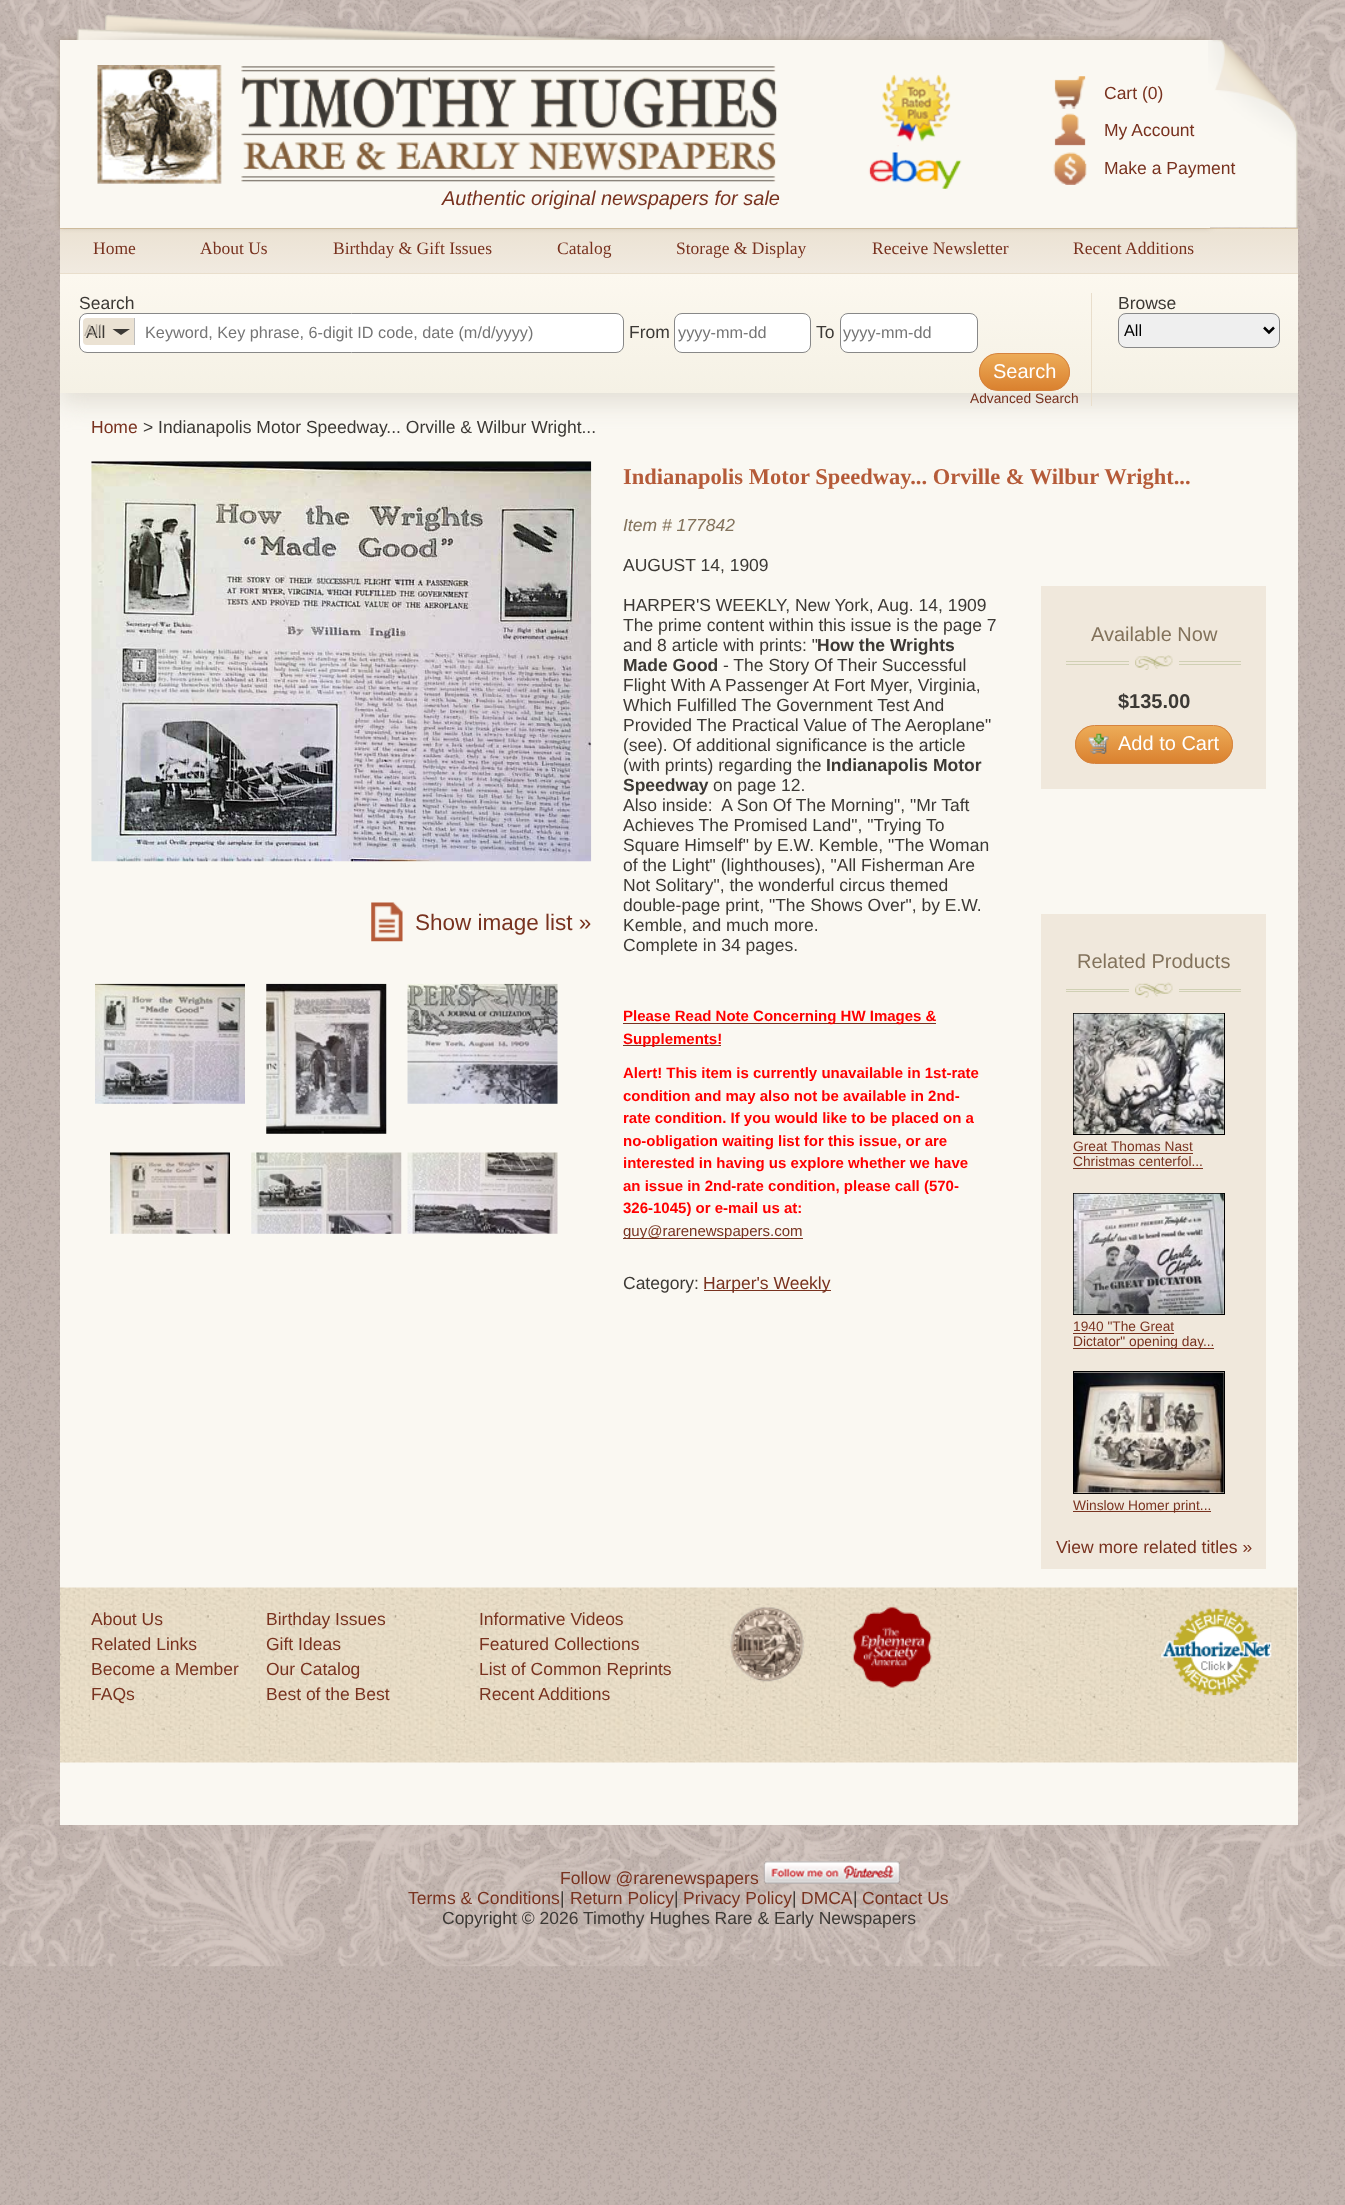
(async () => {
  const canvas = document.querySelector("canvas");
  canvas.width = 1345;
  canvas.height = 2205;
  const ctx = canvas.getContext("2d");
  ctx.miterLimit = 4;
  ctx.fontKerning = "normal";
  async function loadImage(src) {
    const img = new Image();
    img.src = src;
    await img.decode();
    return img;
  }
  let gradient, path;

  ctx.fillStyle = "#ffffff";
  ctx.fillRect(0, 0, 1345, 2205);
  ctx.drawImage(await loadImage("img/1.png"), 0, 0, 1345, 2205);
  ctx.drawImage(await loadImage("img/2.png"), 0, 0, 1345, 259);
  gradient = ctx.createLinearGradient(679, 229, 679, 273);
  gradient.addColorStop(0, "#ebe2d3");
  gradient.addColorStop(1, "#f1eae0");
  ctx.fillStyle = gradient;
  ctx.fillRect(60, 229, 1238, 44);
  ctx.fillStyle = "#d9c5a3";
  ctx.fillRect(60, 228, 1238, 1);
  ctx.fillStyle = "#a79888";
  ctx.filter = "blur(3px)";
  ctx.beginPath();
  ctx.rect(60, 39, 1150, 187);
  ctx.fill();
  ctx.filter = "none";
  ctx.fillStyle = "#faf8f2";
  ctx.fillRect(60, 40, 1150, 188);
  ctx.drawImage(await loadImage("img/3.png"), 76, 15, 583, 25);
  ctx.drawImage(await loadImage("img/4.png"), 97, 65, 680, 119);
  ctx.drawImage(await loadImage("img/5.png"), 868, 74, 94, 115);
  ctx.drawImage(await loadImage("img/6.png"), 1054, 76, 32, 33);
  ctx.drawImage(await loadImage("img/7.png"), 1054, 113, 32, 33);
  ctx.drawImage(await loadImage("img/8.png"), 1053, 152, 34, 33);
  ctx.drawImage(await loadImage("img/9.png"), 1208, 40, 90, 188);
  ctx.fillStyle = "#e9decc";
  ctx.fillRect(60, 273, 1238, 1);
  ctx.drawImage(await loadImage("img/28.png"), 0, 1708, 1345, 259);
  ctx.fillStyle = "#faf8f2";
  ctx.fillRect(60, 393, 1238, 1432);
  ctx.save();
  ctx.beginPath();
  ctx.rect(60, 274, 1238, 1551);
  ctx.clip();
  ctx.fillStyle = "#e2ded5";
  ctx.filter = "blur(12.5px)";
  ctx.beginPath();
  ctx.rect(60, 284, 1275, 119);
  ctx.fill();
  ctx.filter = "none";
  ctx.restore();
  gradient = ctx.createLinearGradient(698, 274, 698, 393);
  gradient.addColorStop(0.01, "#fcf8ef");
  gradient.addColorStop(1, "#f5f1e5");
  ctx.fillStyle = gradient;
  ctx.fillRect(60, 274, 1238, 119);
  ctx.fillStyle = "#e9decc";
  ctx.fillRect(1091, 293, 1, 113);
  ctx.fillStyle = "#ffffff";
  ctx.beginPath();
  ctx.roundRect(79.5, 313.5, 544, 39, 7.5);
  ctx.fill();
  ctx.strokeStyle = "#888888";
  ctx.stroke();
  ctx.fillStyle = "#ebe2d3";
  ctx.beginPath();
  ctx.roundRect(83, 318, 52, 27, [4, 0, 0, 4]);
  ctx.fill();
  ctx.fillStyle = "#bebebe";
  ctx.fillRect(134, 318, 1, 27);
  ctx.fillStyle = "#3c3935";
  path = new Path2D("M112.5 329H130L121 335Z");
  ctx.fill(path);
  ctx.fillStyle = "#ffffff";
  ctx.beginPath();
  ctx.roundRect(674.5, 313.5, 136, 39, 7.5);
  ctx.fill();
  ctx.stroke();
  ctx.beginPath();
  ctx.roundRect(840.5, 313.5, 137, 39, 7.5);
  ctx.fill();
  ctx.stroke();
  ctx.save();
  ctx.beginPath();
  ctx.roundRect(979, 353, 91, 38, 19);
  ctx.clip();
  gradient = ctx.createLinearGradient(1024, 354, 1024, 390);
  gradient.addColorStop(0, "#edac58");
  gradient.addColorStop(1, "#da812f");
  ctx.fillStyle = gradient;
  ctx.fillRect(979, 354, 91, 36);
  ctx.restore();
  ctx.beginPath();
  ctx.roundRect(979.5, 353.5, 90, 37, 18.5);
  ctx.strokeStyle = "#d6833f";
  ctx.stroke();
  ctx.fillStyle = "#efefef";
  ctx.beginPath();
  ctx.roundRect(1118.5, 313.5, 161, 34, 7.5);
  ctx.fill();
  ctx.strokeStyle = "#888888";
  ctx.stroke();
  path = new Path2D("M1264 327.5L1269 332.5L1274 327.5");
  ctx.strokeStyle = "#000000";
  ctx.lineWidth = 2.5;
  ctx.stroke(path);
  for (const [x, y, w, h, color] of [
    [623, 1023, 313, 1, "#78321f"],
    [623, 1045, 98, 1, "#78321f"],
    [623, 1238, 180, 1, "#78321f"],
    [704, 1290, 127, 1, "#78321f"],
  ]) {
    ctx.fillStyle = color;
    ctx.fillRect(x, y, w, h);
  }
  ctx.drawImage(await loadImage("img/10.png"), 91, 461, 501, 401);
  ctx.drawImage(await loadImage("img/11.png"), 371, 902, 32, 40);
  ctx.drawImage(await loadImage("img/12.png"), 95, 983, 150, 121);
  ctx.drawImage(await loadImage("img/13.png"), 266, 983, 121, 151);
  ctx.drawImage(await loadImage("img/14.png"), 407, 983, 151, 121);
  ctx.drawImage(await loadImage("img/15.png"), 110, 1152, 120, 82);
  ctx.drawImage(await loadImage("img/16.png"), 251, 1152, 151, 82);
  ctx.drawImage(await loadImage("img/17.png"), 407, 1152, 151, 82);
  for (const [x, y, w, h, color] of [
    [1041, 586, 225, 203, "#f0e8dc"],
    [1066, 661, 175, 1, "#d0d0b4"],
    [1066, 664, 175, 1, "#d0d0b4"],
    [1129, 661, 50, 4, "#f0e8dc"],
  ]) {
    ctx.fillStyle = color;
    ctx.fillRect(x, y, w, h);
  }
  ctx.drawImage(await loadImage("img/18.png"), 1135, 655, 38, 15);
  ctx.save();
  ctx.beginPath();
  ctx.roundRect(1075, 725, 158, 39, 19.5);
  ctx.clip();
  gradient = ctx.createLinearGradient(1154, 726, 1154, 763);
  gradient.addColorStop(0, "#edac58");
  gradient.addColorStop(1, "#da812f");
  ctx.fillStyle = gradient;
  ctx.fillRect(1075, 726, 158, 37);
  ctx.restore();
  ctx.beginPath();
  ctx.roundRect(1075.5, 725.5, 157, 38, 19);
  ctx.strokeStyle = "#d6833f";
  ctx.lineWidth = 1;
  ctx.stroke();
  ctx.drawImage(await loadImage("img/19.png"), 1088, 733, 21, 21);
  for (const [x, y, w, h, color] of [
    [1041, 914, 225, 655, "#f0e8dc"],
    [1066, 989, 175, 1, "#d0d0b4"],
    [1066, 991, 175, 1, "#d0d0b4"],
    [1129, 989, 50, 3, "#f0e8dc"],
  ]) {
    ctx.fillStyle = color;
    ctx.fillRect(x, y, w, h);
  }
  ctx.drawImage(await loadImage("img/20.png"), 1135, 982, 38, 16);
  ctx.strokeStyle = "#000000";
  ctx.strokeRect(1073.5, 1013.5, 151, 121);
  ctx.drawImage(await loadImage("img/21.png"), 1073, 1013, 151, 121);
  ctx.fillStyle = "#78321f";
  ctx.fillRect(1073, 1153, 120, 1);
  ctx.fillRect(1073, 1168, 130, 1);
  ctx.strokeRect(1073.5, 1193.5, 151, 121);
  ctx.drawImage(await loadImage("img/22.png"), 1073, 1193, 151, 121);
  ctx.fillRect(1073, 1333, 101, 1);
  ctx.fillRect(1073, 1348, 141, 1);
  ctx.strokeRect(1073.5, 1371.5, 151, 122);
  ctx.drawImage(await loadImage("img/23.png"), 1073, 1372, 151, 121);
  ctx.fillRect(1073, 1511, 138, 1);
  ctx.drawImage(await loadImage("img/24.png"), 60, 1587, 1238, 176);
  ctx.drawImage(await loadImage("img/25.png"), 730, 1607, 74, 75);
  ctx.drawImage(await loadImage("img/26.png"), 852, 1606, 80, 82);
  ctx.drawImage(await loadImage("img/27.png"), 1161, 1608, 111, 88);
  ctx.drawImage(await loadImage("img/29.png"), 763, 1861, 137, 23);
  ctx.font = "17.5px Liberation Sans";
  for (const [text, x, y] of [
    ["Cart (0)", 1104, 99],
    ["My Account", 1104, 136],
    ["Make a Payment", 1104, 174],
  ]) {
    ctx.fillText(text, x, y);
  }
  ctx.font = "italic 20px Liberation Sans";
  ctx.fillText("Authentic original newspapers for sale", 442, 205);
  ctx.font = "17.5px Liberation Serif";
  for (const [text, x, y] of [
    ["Home", 93, 254],
    ["About Us", 200, 254],
    ["Birthday & Gift Issues", 333, 254],
    ["Catalog", 557, 254],
    ["Storage & Display", 676, 254],
    ["Receive Newsletter", 872, 254],
    ["Recent Additions", 1073, 254],
  ]) {
    ctx.fillText(text, x, y);
  }
  ctx.font = "17.5px Liberation Sans";
  ctx.fillStyle = "#3c3935";
  ctx.fillText("Search", 79, 309);
  ctx.fillText("All", 86, 338);
  ctx.font = "16.25px Liberation Sans";
  ctx.fillStyle = "#bcb4a8";
  ctx.fillText("All", 84, 336);
  ctx.fillStyle = "#757575";
  ctx.fillText("Keyword, Key phrase, 6-digit ID code, date (m/d/yyyy)", 145, 338);
  ctx.font = "17.5px Liberation Sans";
  ctx.fillStyle = "#3c3935";
  ctx.fillText("From", 629, 338);
  ctx.font = "16.25px Liberation Sans";
  ctx.fillStyle = "#757575";
  ctx.fillText("yyyy-mm-dd", 678, 338);
  ctx.font = "17.5px Liberation Sans";
  ctx.fillStyle = "#3c3935";
  ctx.fillText("To", 816, 338);
  ctx.font = "16.25px Liberation Sans";
  ctx.fillStyle = "#757575";
  ctx.fillText("yyyy-mm-dd", 843, 338);
  ctx.font = "20px Liberation Sans";
  ctx.fillStyle = "#ffffff";
  ctx.fillText("Search", 993, 378);
  ctx.font = "13.75px Liberation Sans";
  ctx.fillStyle = "#78321f";
  ctx.fillText("Advanced Search", 970, 403);
  ctx.font = "17.5px Liberation Sans";
  ctx.fillStyle = "#3c3935";
  ctx.fillText("Browse", 1118, 309);
  ctx.font = "16.25px Liberation Sans";
  ctx.fillStyle = "#000000";
  ctx.fillText("All", 1124, 336);
  ctx.font = "17.5px Liberation Sans";
  ctx.fillStyle = "#78321f";
  ctx.fillText("Home", 91, 433);
  ctx.fillStyle = "#3c3935";
  ctx.fillText("> Indianapolis Motor Speedway... Orville & Wilbur Wright...", 143, 433);
  ctx.font = "bold 22.5px Liberation Serif";
  ctx.fillStyle = "#b55b39";
  ctx.fillText("Indianapolis Motor Speedway... Orville & Wilbur Wright...", 623, 484);
  ctx.font = "italic 17.5px Liberation Sans";
  ctx.fillStyle = "#82725b";
  ctx.fillText("Item # 177842", 623, 531);
  ctx.font = "17.5px Liberation Sans";
  ctx.fillStyle = "#3c3935";
  for (const [text, x, y] of [
    ["AUGUST 14, 1909", 623, 571],
    ["HARPER'S WEEKLY, New York, Aug. 14, 1909", 623, 611],
    ["The prime content within this issue is the page 7", 623, 631],
    ["and 8 article with prints: \"", 623, 651],
  ]) {
    ctx.fillText(text, x, y);
  }
  ctx.font = "bold 17.5px Liberation Sans";
  ctx.fillText("How the Wrights", 817, 651);
  ctx.fillText("Made Good", 623, 671);
  ctx.font = "17.5px Liberation Sans";
  for (const [text, x, y] of [
    ["- The Story Of Their Successful", 723, 671],
    ["Flight With A Passenger At Fort Myer, Virginia,", 623, 691],
    ["Which Fulfilled The Government Test And", 623, 711],
    ["Provided The Practical Value of The Aeroplane\"", 623, 731],
    ["(see). Of additional significance is the article", 623, 751],
    ["(with prints) regarding the", 623, 771],
  ]) {
    ctx.fillText(text, x, y);
  }
  ctx.font = "bold 17.5px Liberation Sans";
  ctx.fillText("Indianapolis Motor", 826, 771);
  ctx.fillText("Speedway", 623, 791);
  ctx.font = "17.5px Liberation Sans";
  for (const [text, x, y] of [
    ["on page 12.", 713, 791],
    ["Also inside:  A Son Of The Morning\", \"Mr Taft", 623, 811],
    ["Achieves The Promised Land\", \"Trying To", 623, 831],
    ["Square Himself\" by E.W. Kemble, \"The Woman", 623, 851],
    ["of the Light\" (lighthouses), \"All Fisherman Are", 623, 871],
    ["Not Solitary\", the wonderful circus themed", 623, 891],
    ["double-page print, \"The Shows Over\", by E.W.", 623, 911],
    ["Kemble, and much more.", 623, 931],
    ["Complete in 34 pages.", 623, 951],
  ]) {
    ctx.fillText(text, x, y);
  }
  ctx.font = "bold 15px Liberation Sans";
  ctx.fillStyle = "#ff0000";
  for (const [text, x, y] of [
    ["Please Read Note Concerning HW Images &", 623, 1021],
    ["Supplements!", 623, 1044],
    ["Alert! This item is currently unavailable in 1st-rate", 623, 1078],
    ["condition and may also not be available in 2nd-", 623, 1101],
    ["rate condition. If you would like to be placed on a", 623, 1123],
    ["no-obligation waiting list for this issue, or are", 623, 1146],
    ["interested in having us explore whether we have", 623, 1168],
    ["an issue in 2nd-rate condition, please call (570-", 623, 1191],
    ["326-1045) or e-mail us at:", 623, 1213],
  ]) {
    ctx.fillText(text, x, y);
  }
  ctx.font = "15px Liberation Sans";
  ctx.fillStyle = "#78321f";
  ctx.fillText("guy@rarenewspapers.com", 623, 1236);
  ctx.font = "17.5px Liberation Sans";
  ctx.fillStyle = "#3c3935";
  ctx.fillText("Category:", 623, 1289);
  ctx.fillStyle = "#78321f";
  ctx.fillText("Harper's Weekly", 703, 1289);
  ctx.font = "22.5px Liberation Sans";
  ctx.fillText("Show image list »", 415, 930);
  ctx.font = "20px Liberation Sans";
  ctx.fillStyle = "#82725b";
  ctx.fillText("Available Now", 1091, 641);
  ctx.font = "bold 20px Liberation Sans";
  ctx.fillStyle = "#3c3935";
  ctx.fillText("$135.00", 1118, 708);
  ctx.font = "20px Liberation Sans";
  ctx.fillStyle = "#ffffff";
  ctx.fillText("Add to Cart", 1118, 750);
  ctx.fillStyle = "#82725b";
  ctx.fillText("Related Products", 1077, 968);
  ctx.font = "13.75px Liberation Sans";
  ctx.fillStyle = "#78321f";
  for (const [text, x, y] of [
    ["Great Thomas Nast", 1073, 1151],
    ["Christmas centerfol...", 1073, 1166],
    ["1940 \"The Great", 1073, 1331],
    ["Dictator\" opening day...", 1073, 1346],
    ["Winslow Homer print...", 1073, 1510],
  ]) {
    ctx.fillText(text, x, y);
  }
  ctx.font = "17.5px Liberation Sans";
  for (const [text, x, y] of [
    ["View more related titles »", 1056, 1553],
    ["About Us", 91, 1625],
    ["Related Links", 91, 1650],
    ["Become a Member", 91, 1675],
    ["FAQs", 91, 1700],
    ["Birthday Issues", 266, 1625],
    ["Gift Ideas", 266, 1650],
    ["Our Catalog", 266, 1675],
    ["Best of the Best", 266, 1700],
    ["Informative Videos", 479, 1625],
    ["Featured Collections", 479, 1650],
    ["List of Common Reprints", 479, 1675],
    ["Recent Additions", 479, 1700],
    ["Follow @rarenewspapers", 560, 1884],
    ["Terms & Conditions", 408, 1904],
  ]) {
    ctx.fillText(text, x, y);
  }
  ctx.fillStyle = "#3c3935";
  ctx.fillText("|", 560, 1904);
  ctx.fillStyle = "#78321f";
  ctx.fillText("Return Policy", 570, 1904);
  ctx.fillStyle = "#3c3935";
  ctx.fillText("|", 674, 1904);
  ctx.fillStyle = "#78321f";
  ctx.fillText("Privacy Policy", 683, 1904);
  ctx.fillStyle = "#3c3935";
  ctx.fillText("|", 792, 1904);
  ctx.fillStyle = "#78321f";
  ctx.fillText("DMCA", 801, 1904);
  ctx.fillStyle = "#3c3935";
  ctx.fillText("|", 853, 1904);
  ctx.fillStyle = "#78321f";
  ctx.fillText("Contact Us", 862, 1904);
  ctx.fillStyle = "#3c3935";
  ctx.fillText("Copyright © 2026 Timothy Hughes Rare & Early Newspapers", 442, 1924);
})();
